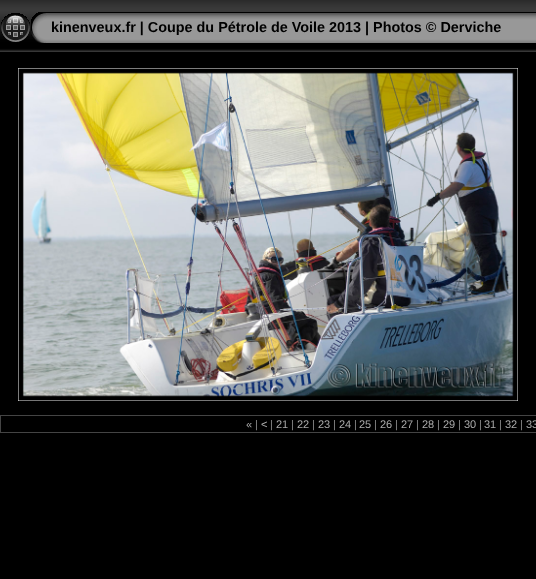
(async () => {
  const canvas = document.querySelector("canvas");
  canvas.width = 536;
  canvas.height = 579;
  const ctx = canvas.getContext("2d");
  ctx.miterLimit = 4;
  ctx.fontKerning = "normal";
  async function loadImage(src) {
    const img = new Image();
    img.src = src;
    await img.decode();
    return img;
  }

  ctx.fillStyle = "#000000";
  ctx.fillRect(0, 0, 536, 579);
  ctx.drawImage(await loadImage("img/1.png"), 0, 0, 536, 52);
  ctx.drawImage(await loadImage("img/2.png"), 1, 13, 29, 29);
  ctx.drawImage(await loadImage("img/3.png"), 31, 12, 20, 31);
  ctx.drawImage(await loadImage("img/4.png"), 51, 12, 485, 31);
  ctx.drawImage(await loadImage("img/5.png"), 18, 68, 500, 333);
  for (const [x, y, w, h, color] of [
    [0, 415, 536, 1, "#444444"],
    [0, 432, 536, 1, "#444444"],
    [0, 415, 1, 18, "#444444"],
  ]) {
    ctx.fillStyle = color;
    ctx.fillRect(x, y, w, h);
  }
  ctx.font = "bold 14.4px Liberation Sans";
  ctx.fillStyle = "#000000";
  ctx.fillText("kinenveux.fr | Coupe du Pétrole de Voile 2013 | Photos © Derviche", 51, 32);
  ctx.font = "11px Liberation Sans";
  ctx.fillStyle = "#aaaaaa";
  ctx.fillText("«", 246, 428);
  ctx.fillStyle = "#888888";
  ctx.fillText("|", 255, 428);
  ctx.fillStyle = "#aaaaaa";
  ctx.fillText("<", 261, 428);
  ctx.fillStyle = "#888888";
  ctx.fillText("|", 270, 428);
  ctx.fillStyle = "#aaaaaa";
  ctx.fillText("21", 276, 428);
  ctx.fillStyle = "#888888";
  ctx.fillText("|", 291, 428);
  ctx.fillStyle = "#aaaaaa";
  ctx.fillText("22", 297, 428);
  ctx.fillStyle = "#888888";
  ctx.fillText("|", 312, 428);
  ctx.fillStyle = "#aaaaaa";
  ctx.fillText("23", 318, 428);
  ctx.fillStyle = "#888888";
  ctx.fillText("|", 333, 428);
  ctx.fillStyle = "#aaaaaa";
  ctx.fillText("24", 339, 428);
  ctx.fillStyle = "#888888";
  ctx.fillText("|", 354, 428);
  ctx.fillStyle = "#aaaaaa";
  ctx.fillText("25", 359, 428);
  ctx.fillStyle = "#888888";
  ctx.fillText("|", 374, 428);
  ctx.fillStyle = "#aaaaaa";
  ctx.fillText("26", 380, 428);
  ctx.fillStyle = "#888888";
  ctx.fillText("|", 395, 428);
  ctx.fillStyle = "#aaaaaa";
  ctx.fillText("27", 401, 428);
  ctx.fillStyle = "#888888";
  ctx.fillText("|", 416, 428);
  ctx.fillStyle = "#aaaaaa";
  ctx.fillText("28", 422, 428);
  ctx.fillStyle = "#888888";
  ctx.fillText("|", 437, 428);
  ctx.fillStyle = "#aaaaaa";
  ctx.fillText("29", 443, 428);
  ctx.fillStyle = "#888888";
  ctx.fillText("|", 458, 428);
  ctx.fillStyle = "#aaaaaa";
  ctx.fillText("30", 464, 428);
  ctx.fillStyle = "#888888";
  ctx.fillText("|", 479, 428);
  ctx.fillStyle = "#aaaaaa";
  ctx.fillText("31", 484, 428);
  ctx.fillStyle = "#888888";
  ctx.fillText("|", 499, 428);
  ctx.fillStyle = "#aaaaaa";
  ctx.fillText("32", 505, 428);
  ctx.fillStyle = "#888888";
  ctx.fillText("|", 520, 428);
  ctx.fillStyle = "#aaaaaa";
  ctx.fillText("33", 526, 428);
})();
